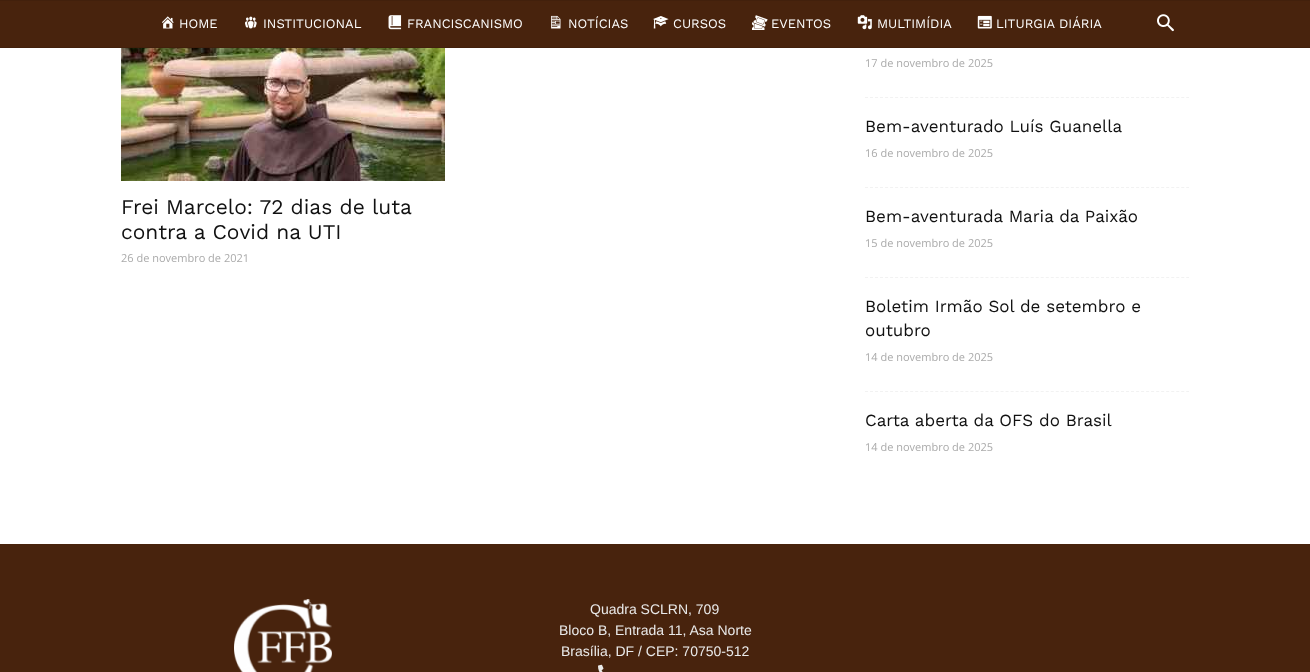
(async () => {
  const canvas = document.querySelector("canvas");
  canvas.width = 1310;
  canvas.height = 672;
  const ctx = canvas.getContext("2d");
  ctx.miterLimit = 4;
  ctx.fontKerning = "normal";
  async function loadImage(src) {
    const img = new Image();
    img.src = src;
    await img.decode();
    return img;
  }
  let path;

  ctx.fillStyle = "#ffffff";
  ctx.fillRect(0, 0, 1310, 672);
  ctx.fillStyle = "#48230d";
  ctx.fillRect(0, 1, 1310, 46);
  ctx.fillStyle = "#42200c";
  ctx.fillRect(0, 0, 1310, 1);
  ctx.drawImage(await loadImage("img/1.png"), 162, 16, 12, 13);
  ctx.drawImage(await loadImage("img/2.png"), 245, 16, 12, 13);
  ctx.drawImage(await loadImage("img/3.png"), 388, 15, 14, 15);
  ctx.drawImage(await loadImage("img/4.png"), 551, 15, 10, 14);
  ctx.drawImage(await loadImage("img/5.png"), 653, 16, 16, 13);
  ctx.drawImage(await loadImage("img/6.png"), 752, 15, 16, 15);
  ctx.drawImage(await loadImage("img/7.png"), 857, 15, 15, 15);
  ctx.drawImage(await loadImage("img/8.png"), 977, 15, 15, 14);
  ctx.drawImage(await loadImage("img/9.png"), 1157, 14, 17, 18);
  ctx.fillRect(0, 47, 1310, 1);
  ctx.drawImage(await loadImage("img/10.png"), 121, 48, 324, 133);
  path = new Path2D("M865 97.5H1189");
  ctx.strokeStyle = "#f2f2f2";
  ctx.setLineDash([3, 2.02]);
  ctx.stroke(path);
  path = new Path2D("M865 187.5H1189");
  ctx.stroke(path);
  path = new Path2D("M865 277.5H1189");
  ctx.stroke(path);
  path = new Path2D("M865 391.5H1189");
  ctx.stroke(path);
  ctx.fillStyle = "#48230d";
  ctx.fillRect(0, 544, 1310, 128);
  ctx.drawImage(await loadImage("img/11.png"), 234, 599, 98, 73);
  ctx.drawImage(await loadImage("img/12.png"), 598, 664, 6, 8);
  ctx.font = "13px Work Sans";
  ctx.fillStyle = "#ffffff";
  for (const [text, x, y] of [
    ["HOME", 179, 28],
    ["INSTITUCIONAL", 263, 28],
    ["FRANCISCANISMO", 407, 28],
    ["NOTÍCIAS", 568, 28],
    ["CURSOS", 673, 28],
    ["EVENTOS", 771, 28],
    ["MULTIMÍDIA", 877, 28],
    ["LITURGIA DIÁRIA", 996, 28],
  ]) {
    ctx.fillText(text, x, y);
  }
  ctx.font = "21px Work Sans";
  ctx.fillStyle = "#111111";
  ctx.fillText("Frei Marcelo: 72 dias de luta", 121, 214);
  ctx.fillText("contra a Covid na UTI", 121, 239);
  ctx.font = "11px Open Sans";
  ctx.fillStyle = "#aaaaaa";
  ctx.fillText("26 de novembro de 2021", 121, 262);
  ctx.fillText("17 de novembro de 2025", 865, 67);
  ctx.font = "17px Work Sans";
  ctx.fillStyle = "#111111";
  ctx.fillText("Bem-aventurado Luís Guanella", 865, 132);
  ctx.font = "11px Open Sans";
  ctx.fillStyle = "#aaaaaa";
  ctx.fillText("16 de novembro de 2025", 865, 157);
  ctx.font = "17px Work Sans";
  ctx.fillStyle = "#111111";
  ctx.fillText("Bem-aventurada Maria da Paixão", 865, 222);
  ctx.font = "11px Open Sans";
  ctx.fillStyle = "#aaaaaa";
  ctx.fillText("15 de novembro de 2025", 865, 247);
  ctx.font = "17px Work Sans";
  ctx.fillStyle = "#111111";
  ctx.fillText("Boletim Irmão Sol de setembro e", 865, 312);
  ctx.fillText("outubro", 865, 336);
  ctx.font = "11px Open Sans";
  ctx.fillStyle = "#aaaaaa";
  ctx.fillText("14 de novembro de 2025", 865, 361);
  ctx.font = "17px Work Sans";
  ctx.fillStyle = "#111111";
  ctx.fillText("Carta aberta da OFS do Brasil", 865, 426);
  ctx.font = "11px Open Sans";
  ctx.fillStyle = "#aaaaaa";
  ctx.fillText("14 de novembro de 2025", 865, 451);
  ctx.font = "14px Liberation Sans";
  ctx.fillStyle = "#eaeaea";
  for (const [text, x, y] of [
    ["Quadra SCLRN, 709", 590, 614],
    ["Bloco B, Entrada 11, Asa Norte", 559, 635],
    ["Brasília, DF / CEP: 70750-512", 561, 656],
  ]) {
    ctx.fillText(text, x, y);
  }
})();
